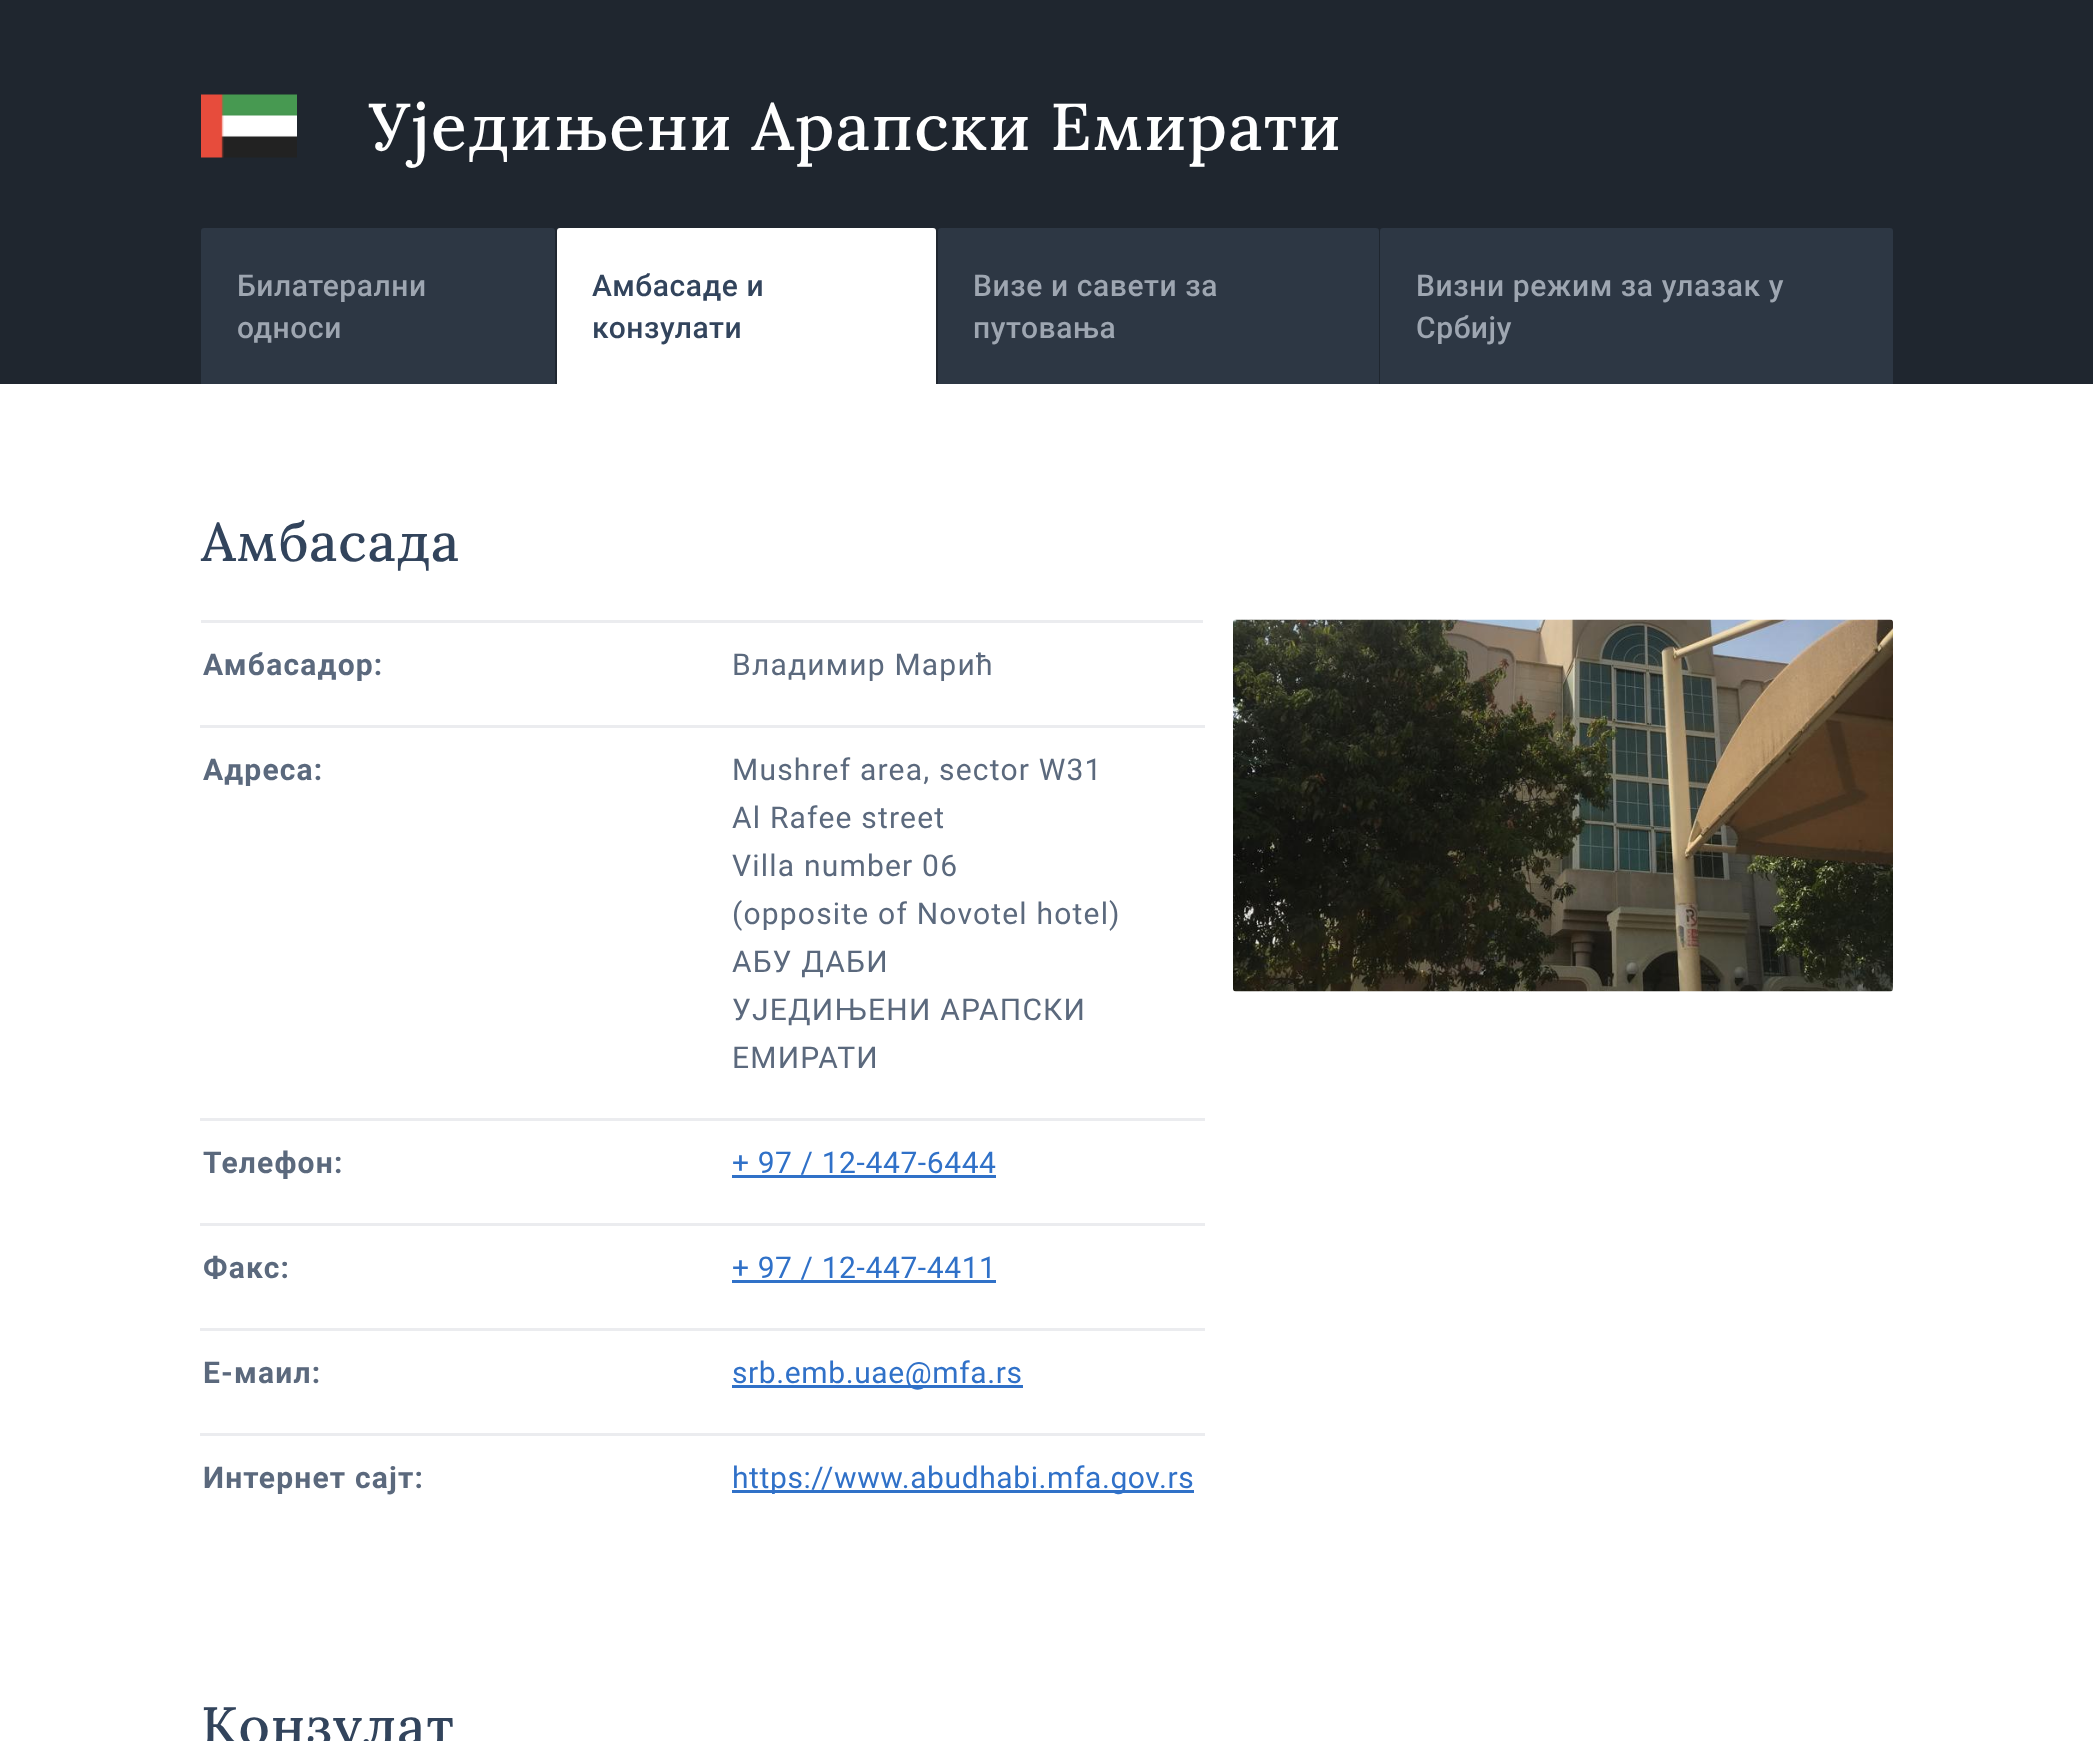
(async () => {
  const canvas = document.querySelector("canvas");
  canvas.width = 2093;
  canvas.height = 1741;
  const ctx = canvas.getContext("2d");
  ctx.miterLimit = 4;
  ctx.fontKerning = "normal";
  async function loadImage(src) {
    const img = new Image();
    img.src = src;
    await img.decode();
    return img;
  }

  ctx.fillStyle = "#ffffff";
  ctx.fillRect(0, 0, 2093, 1741);
  ctx.fillStyle = "#1f262f";
  ctx.fillRect(0, 0, 2093, 384);
  ctx.drawImage(await loadImage("img/1.png"), 201, 94, 96, 64);
  ctx.fillStyle = "#2d3744";
  ctx.beginPath();
  ctx.roundRect(201, 228, 354, 156, [3, 3, 0, 0]);
  ctx.fill();
  ctx.fillStyle = "#ffffff";
  ctx.beginPath();
  ctx.roundRect(557, 228, 379, 156, [3, 3, 0, 0]);
  ctx.fill();
  ctx.fillStyle = "#2d3744";
  ctx.beginPath();
  ctx.roundRect(938, 228, 441, 156, [3, 3, 0, 0]);
  ctx.fill();
  ctx.beginPath();
  ctx.roundRect(1380, 228, 513, 156, [3, 3, 0, 0]);
  ctx.fill();
  for (const [x, y, w, h, color] of [
    [201, 620, 1002, 3, "#ebecef"],
    [200, 725, 1005, 3, "#ebecef"],
    [200, 1118, 1005, 3, "#ebecef"],
    [200, 1223, 1005, 3, "#ebecef"],
    [732, 1175, 264, 3, "#3071c8"],
    [200, 1328, 1005, 3, "#ebecef"],
    [732, 1280, 264, 3, "#3071c8"],
    [200, 1433, 1005, 3, "#ebecef"],
    [732, 1385, 291, 3, "#3071c8"],
    [732, 1490, 462, 3, "#3071c8"],
  ]) {
    ctx.fillStyle = color;
    ctx.fillRect(x, y, w, h);
  }
  ctx.drawImage(await loadImage("img/2.png"), 1233, 619, 660, 373);
  ctx.letterSpacing = "1.3px";
  ctx.font = "500 66px Lora";
  ctx.fillStyle = "#ffffff";
  ctx.fillText("Уједињени Арапски Емирати", 369, 150);
  ctx.letterSpacing = "0.6px";
  ctx.font = "500 30px Roboto";
  ctx.fillStyle = "#9ea6b1";
  ctx.fillText("Билатерални", 237, 296);
  ctx.fillText("односи", 237, 338);
  ctx.fillStyle = "#32445c";
  ctx.fillText("Амбасаде и", 592, 296);
  ctx.fillText("конзулати", 592, 338);
  ctx.fillStyle = "#9ea6b1";
  for (const [text, x, y] of [
    ["Визе и савети за", 973, 296],
    ["путовања", 973, 338],
    ["Визни режим за улазак у", 1416, 296],
    ["Србију", 1416, 338],
  ]) {
    ctx.fillText(text, x, y);
  }
  ctx.letterSpacing = "1px";
  ctx.font = "500 54px Lora";
  ctx.fillStyle = "#32445c";
  ctx.fillText("Амбасада", 201, 561);
  ctx.letterSpacing = "1.2px";
  ctx.font = "bold 30px Roboto";
  ctx.fillStyle = "#5b697d";
  ctx.fillText("Амбасадор:", 203, 675);
  ctx.font = "30px Roboto";
  ctx.fillText("Владимир Марић", 732, 675);
  ctx.font = "bold 30px Roboto";
  ctx.fillText("Адреса:", 203, 780);
  ctx.font = "30px Roboto";
  for (const [text, x, y] of [
    ["Mushref area, sector W31", 732, 780],
    ["Al Rafee street", 732, 828],
    ["Villa number 06", 732, 876],
    ["(opposite of Novotel hotel)", 732, 924],
    ["АБУ ДАБИ", 732, 972],
    ["УЈЕДИЊЕНИ АРАПСКИ", 732, 1020],
    ["ЕМИРАТИ", 732, 1068],
  ]) {
    ctx.fillText(text, x, y);
  }
  ctx.font = "bold 30px Roboto";
  ctx.fillText("Телефон:", 203, 1173);
  ctx.letterSpacing = "0.6px";
  ctx.font = "30px Roboto";
  ctx.fillStyle = "#3071c8";
  ctx.fillText("+ 97 / 12-447-6444", 732, 1173);
  ctx.letterSpacing = "1.2px";
  ctx.font = "bold 30px Roboto";
  ctx.fillStyle = "#5b697d";
  ctx.fillText("Факс:", 203, 1278);
  ctx.letterSpacing = "0.6px";
  ctx.font = "30px Roboto";
  ctx.fillStyle = "#3071c8";
  ctx.fillText("+ 97 / 12-447-4411", 732, 1278);
  ctx.letterSpacing = "1.2px";
  ctx.font = "bold 30px Roboto";
  ctx.fillStyle = "#5b697d";
  ctx.fillText("Е-маил:", 203, 1383);
  ctx.letterSpacing = "0.6px";
  ctx.font = "30px Roboto";
  ctx.fillStyle = "#3071c8";
  ctx.fillText("srb.emb.uae@mfa.rs", 732, 1383);
  ctx.letterSpacing = "1.2px";
  ctx.font = "bold 30px Roboto";
  ctx.fillStyle = "#5b697d";
  ctx.fillText("Интернет сајт:", 203, 1488);
  ctx.letterSpacing = "0.6px";
  ctx.font = "30px Roboto";
  ctx.fillStyle = "#3071c8";
  ctx.fillText("https://www.abudhabi.mfa.gov.rs", 732, 1488);
  ctx.letterSpacing = "1px";
  ctx.font = "500 54px Lora";
  ctx.fillStyle = "#32445c";
  ctx.fillText("Конзулат", 201, 1745);
})();
